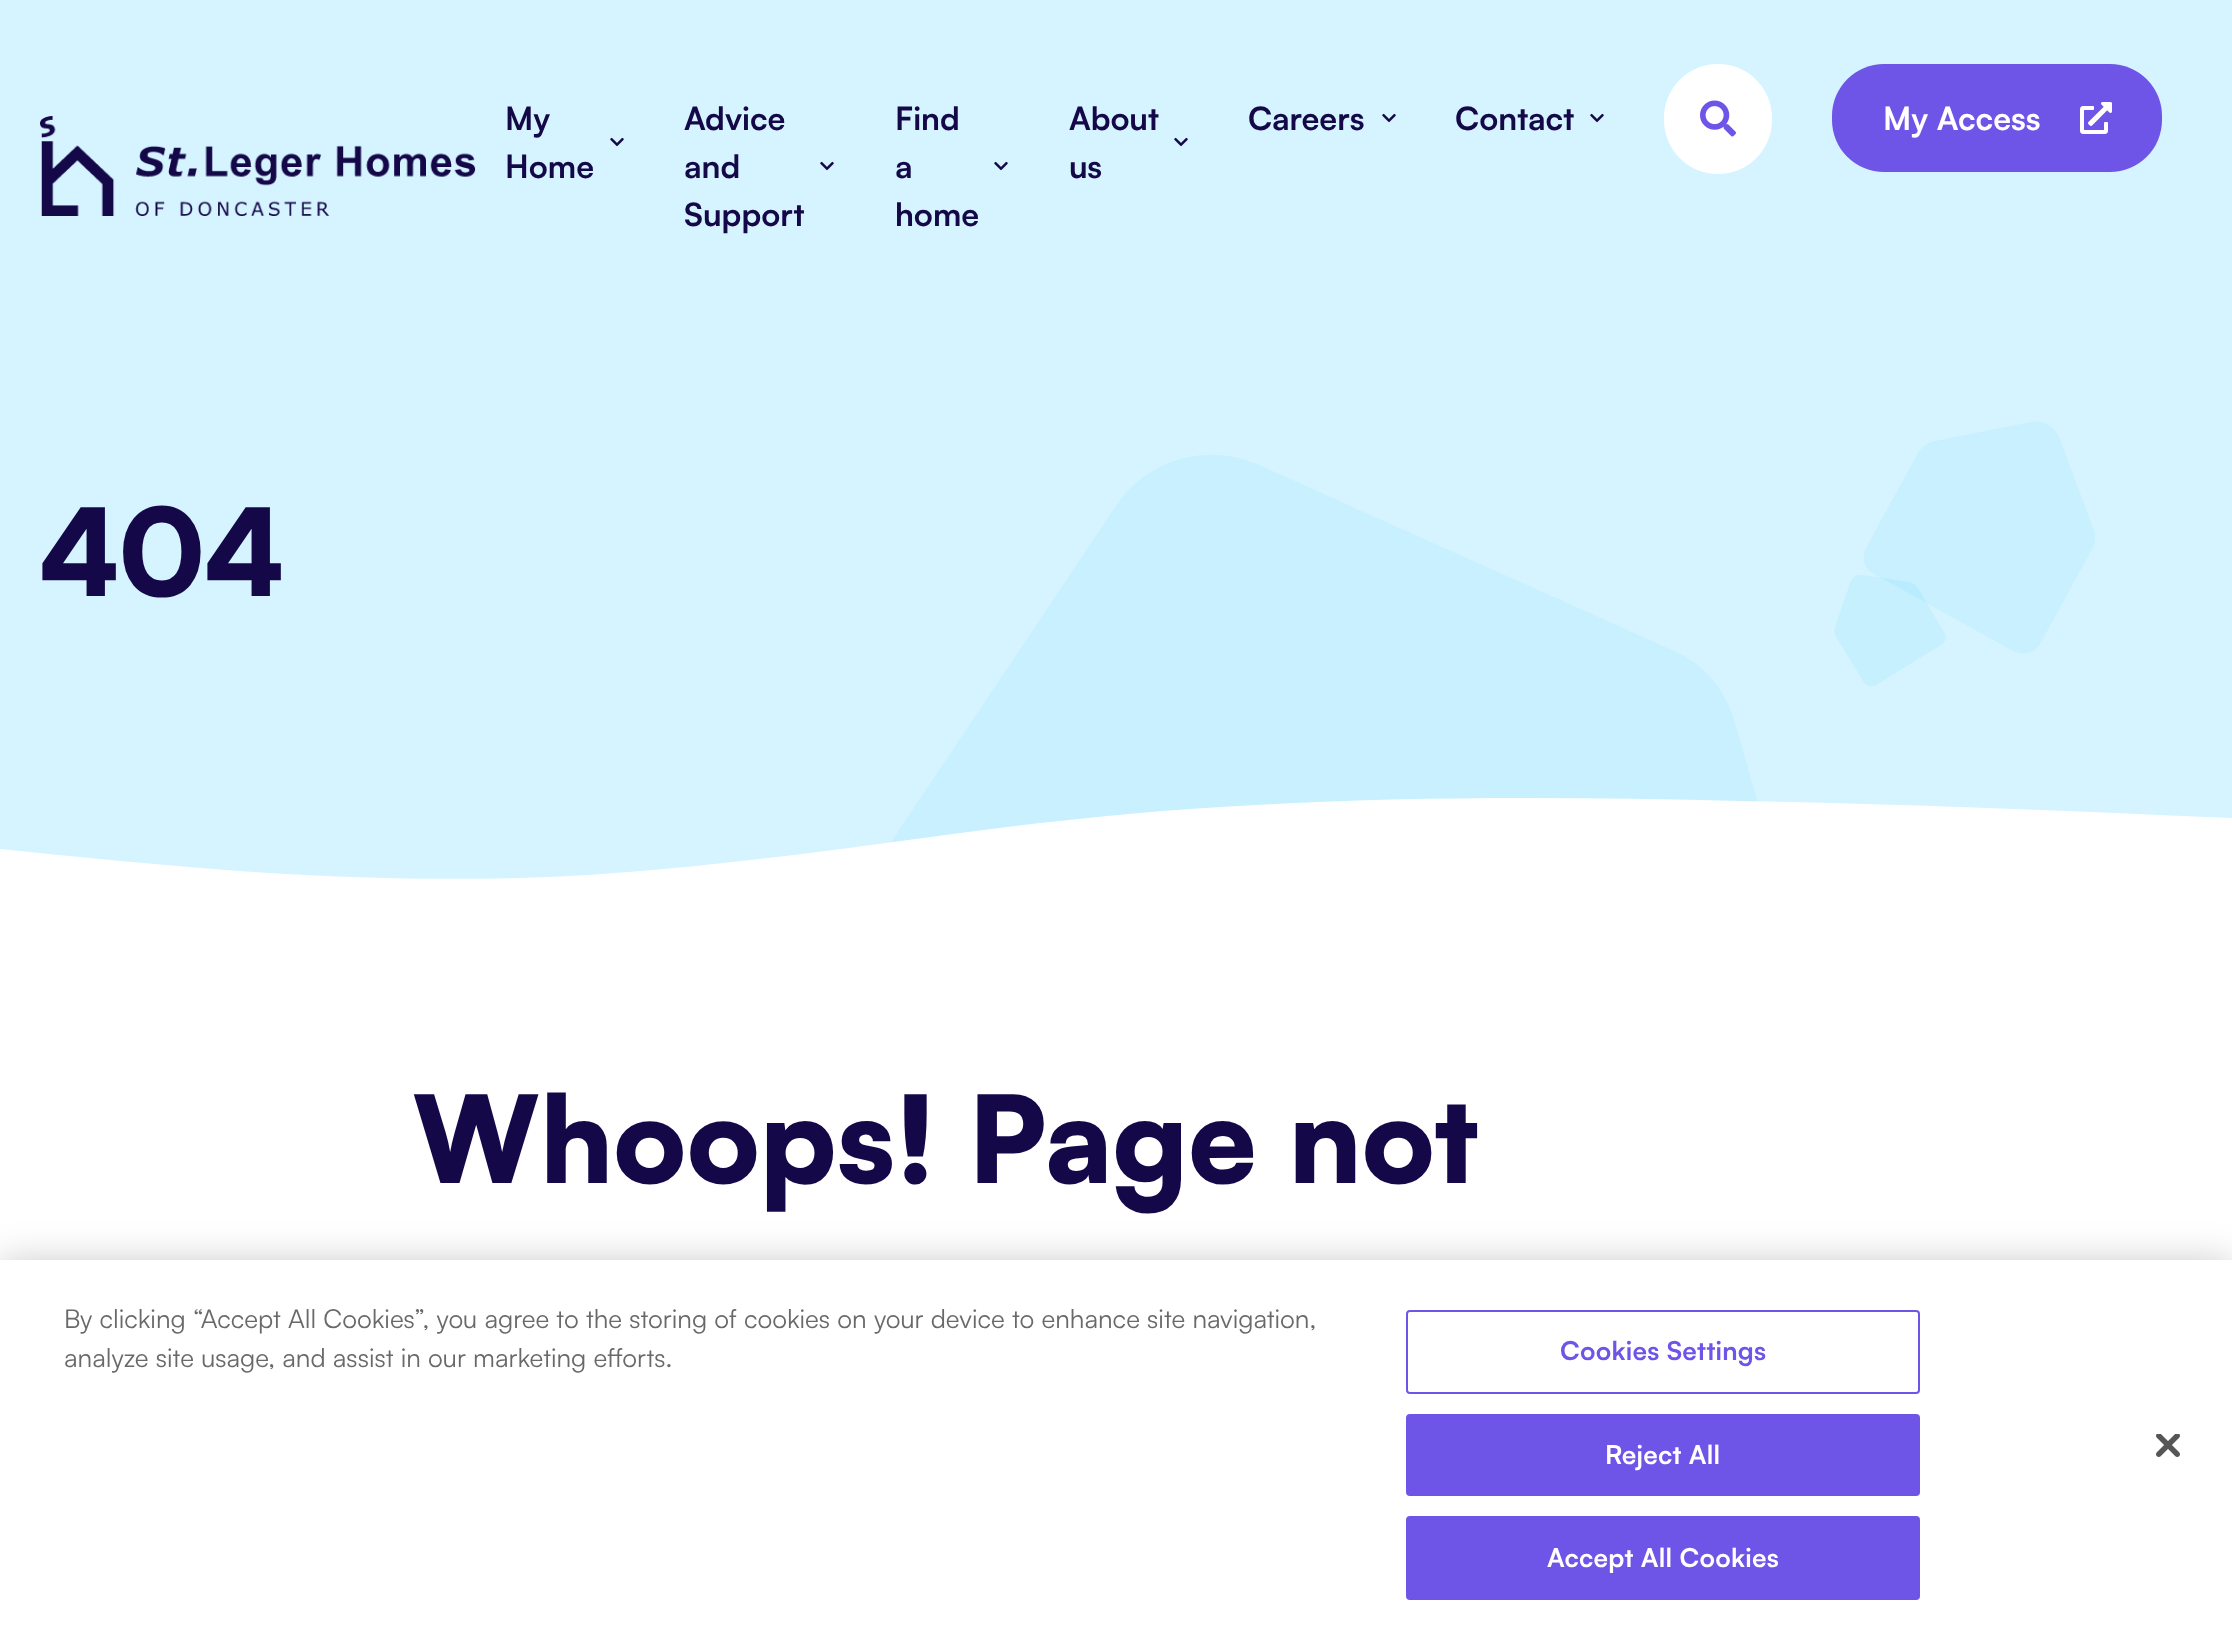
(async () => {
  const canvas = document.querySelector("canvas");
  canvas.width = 2232;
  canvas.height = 1640;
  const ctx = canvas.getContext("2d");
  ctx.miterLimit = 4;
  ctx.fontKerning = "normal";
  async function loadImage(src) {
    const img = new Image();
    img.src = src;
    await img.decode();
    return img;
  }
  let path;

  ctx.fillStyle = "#ffffff";
  ctx.fillRect(0, 0, 2232, 1640);
  ctx.fillStyle = "#d6f4ff";
  ctx.fillRect(0, 0, 2232, 879);
  ctx.drawImage(await loadImage("img/1.png"), 40, 116, 436, 100);
  ctx.drawImage(await loadImage("img/2.png"), 610, 137, 14, 10);
  ctx.drawImage(await loadImage("img/2.png"), 820, 161, 14, 10);
  ctx.drawImage(await loadImage("img/2.png"), 994, 161, 14, 10);
  ctx.drawImage(await loadImage("img/2.png"), 1174, 137, 14, 10);
  ctx.drawImage(await loadImage("img/2.png"), 1382, 113, 14, 10);
  ctx.drawImage(await loadImage("img/2.png"), 1590, 113, 14, 10);
  ctx.fillStyle = "#ffffff";
  ctx.beginPath();
  ctx.roundRect(1664, 64, 108, 110, 54);
  ctx.fill();
  ctx.drawImage(await loadImage("img/3.png"), 1700, 100, 36, 37);
  ctx.fillStyle = "#6e54e7";
  ctx.beginPath();
  ctx.roundRect(1832, 64, 330, 108, 52);
  ctx.fill();
  ctx.drawImage(await loadImage("img/4.png"), 2080, 102, 32, 32);
  ctx.save();
  ctx.beginPath();
  ctx.rect(738, 332, 1160, 566);
  ctx.clip();
  ctx.fillStyle = "#c8f0ff";
  path = new Path2D("M1116 506C1147 459 1208 442 1259 465L1672 650C1703 663 1726 690 1735 723L1873 1205C1887 1252 1859 1302 1812 1315L1099 1520C1051 1533 1002 1506 988 1458L850 977C841 944 846 909 865 881Z");
  ctx.fill(path);
  ctx.restore();
  ctx.fillStyle = "#c8f0ff";
  path = new Path2D("M2031 422C2043 420 2054 426 2059 437L2093 528C2096 535 2096 543 2092 549L2040 644C2034 653 2023 656 2013 651L1874 574C1864 569 1861 557 1866 548L1918 453C1922 447 1928 442 1935 441Z");
  ctx.fill(path);
  ctx.fillStyle = "rgba(71, 206, 255, 0.1)";
  path = new Path2D("M1850 583C1852 577 1857 574 1863 575L1909 582C1913 583 1916 585 1918 588L1944 632C1947 637 1946 642 1941 645L1876 685C1871 687 1865 686 1863 681L1836 637C1834 634 1834 630 1835 627Z");
  ctx.fill(path);
  ctx.save();
  ctx.beginPath();
  ctx.rect(0, 798, 2232, 100);
  ctx.clip();
  ctx.fillStyle = "#ffffff";
  path = new Path2D("M2232 899H0V849C75 857 150 864 225 870C346 879 468 882 589 875C729 866 868 845 1007 827C1089 817 1173 809 1256 805C1417 796 1579 797 1741 801C1905 804 2068 811 2232 818Z");
  ctx.fill(path);
  ctx.restore();
  ctx.fillStyle = "rgba(0, 0, 0, 0.2)";
  ctx.filter = "blur(18px)";
  ctx.beginPath();
  ctx.rect(0, 1260, 2232, 380);
  ctx.fill();
  ctx.filter = "none";
  ctx.fillStyle = "#ffffff";
  ctx.fillRect(0, 1260, 2232, 380);
  ctx.beginPath();
  ctx.roundRect(1407, 1311, 512, 82, 3);
  ctx.strokeStyle = "#6e54e7";
  ctx.lineWidth = 2;
  ctx.stroke();
  ctx.fillStyle = "#6e54e7";
  ctx.beginPath();
  ctx.roundRect(1407, 1415, 512, 80, 3);
  ctx.fill();
  ctx.stroke();
  ctx.beginPath();
  ctx.roundRect(1407, 1517, 512, 82, 3);
  ctx.fill();
  ctx.stroke();
  ctx.drawImage(await loadImage("img/5.png"), 2156, 1434, 24, 23);
  ctx.font = "bold 32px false";
  ctx.fillStyle = "#140849";
  for (const [text, x, y] of [
    ["My", 505, 130],
    ["Home", 505, 178],
    ["Advice", 684, 130],
    ["and", 684, 178],
    ["Support", 684, 226],
    ["Find", 895, 130],
    ["a", 895, 178],
    ["home", 895, 226],
    ["About", 1069, 130],
    ["us", 1069, 178],
    ["Careers", 1248, 130],
    ["Contact", 1455, 130],
  ]) {
    ctx.fillText(text, x, y);
  }
  ctx.fillStyle = "#ffffff";
  ctx.fillText("My Access", 1883, 130);
  ctx.font = "900 120px Satoshi";
  ctx.fillStyle = "#140849";
  ctx.fillText("404", 40, 596);
  ctx.fillText("Whoops! Page not", 412, 1183);
  ctx.font = "26px false";
  ctx.fillStyle = "#696969";
  ctx.fillText("By clicking “Accept All Cookies”, you agree to the storing of cookies on your device to enhance site navigation,", 64, 1328);
  ctx.fillText("analyze site usage, and assist in our marketing efforts.", 64, 1367);
  ctx.letterSpacing = "0.25px";
  ctx.font = "bold 26px false";
  ctx.fillStyle = "#6e54e7";
  ctx.fillText("Cookies Settings", 1560, 1360);
  ctx.fillStyle = "#ffffff";
  ctx.fillText("Reject All", 1605, 1464);
  ctx.fillText("Accept All Cookies", 1547, 1567);
})();
